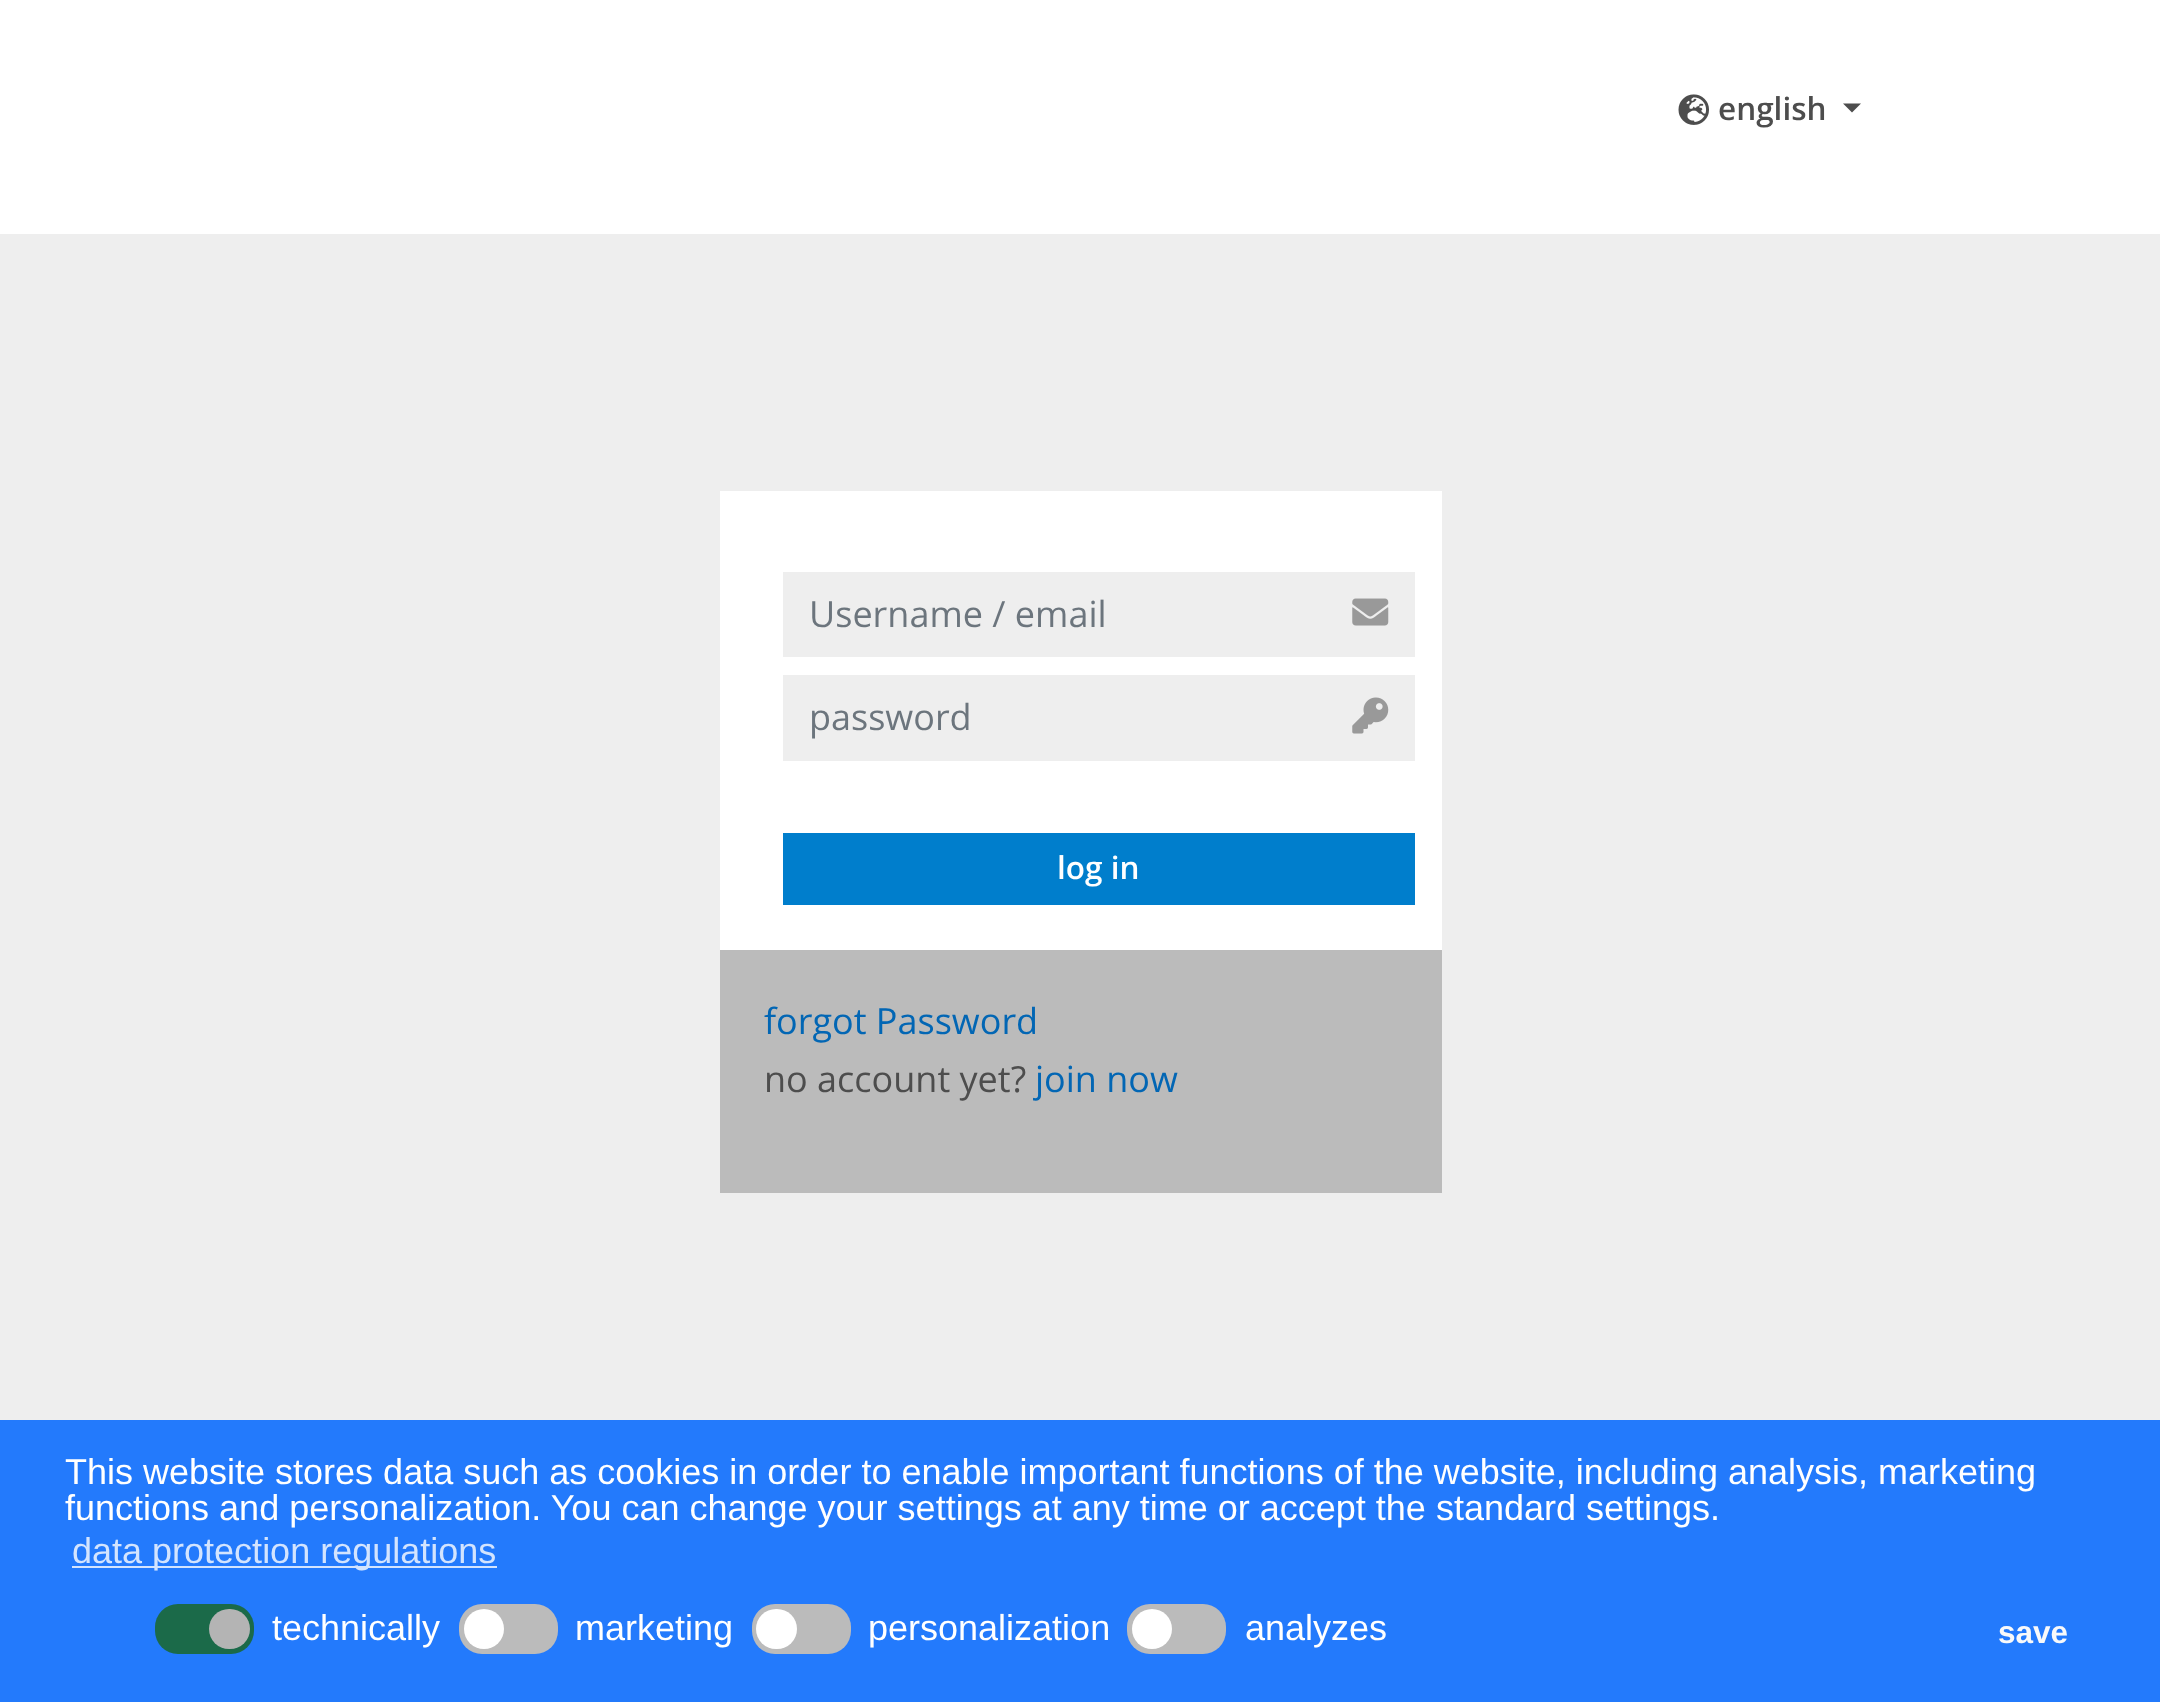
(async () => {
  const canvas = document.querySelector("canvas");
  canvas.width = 2160;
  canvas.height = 1702;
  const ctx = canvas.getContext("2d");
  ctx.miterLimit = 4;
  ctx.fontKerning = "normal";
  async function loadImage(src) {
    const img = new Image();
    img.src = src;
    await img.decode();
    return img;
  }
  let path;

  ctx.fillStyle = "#ffffff";
  ctx.fillRect(0, 0, 2160, 1702);
  ctx.drawImage(await loadImage("img/1.png"), 1678, 94, 31, 31);
  ctx.fillStyle = "#4d4d4d";
  path = new Path2D("M1843 103.5H1861L1852 112.5Z");
  ctx.fill(path);
  for (const [x, y, w, h, color] of [
    [0, 234, 2160, 1186, "#eeeeee"],
    [720, 491, 722, 459, "#ffffff"],
    [783, 572, 632, 85, "#eeeeee"],
  ]) {
    ctx.fillStyle = color;
    ctx.fillRect(x, y, w, h);
  }
  ctx.drawImage(await loadImage("img/2.png"), 1352, 598, 37, 28);
  ctx.fillRect(783, 675, 632, 86);
  ctx.drawImage(await loadImage("img/3.png"), 1352, 697, 37, 37);
  for (const [x, y, w, h, color] of [
    [783, 833, 632, 72, "#007ecc"],
    [720, 950, 722, 243, "#bbbbbb"],
    [0, 1420, 2160, 282, "#237afc"],
    [72, 1566, 425, 2, "#d3e4fe"],
  ]) {
    ctx.fillStyle = color;
    ctx.fillRect(x, y, w, h);
  }
  ctx.fillStyle = "#1b6a49";
  ctx.beginPath();
  ctx.roundRect(155, 1604, 99, 50, 23);
  ctx.fill();
  ctx.fillStyle = "#b4b4b4";
  ctx.beginPath();
  ctx.roundRect(209, 1609, 41, 40, 20);
  ctx.fill();
  ctx.fillStyle = "#bbbbbb";
  ctx.beginPath();
  ctx.roundRect(459, 1604, 99, 50, 23);
  ctx.fill();
  ctx.fillStyle = "#ffffff";
  ctx.beginPath();
  ctx.arc(484, 1629, 20, 0, Math.PI * 2);
  ctx.fill();
  ctx.fillStyle = "#bbbbbb";
  ctx.beginPath();
  ctx.roundRect(752, 1604, 99, 50, 23);
  ctx.fill();
  ctx.fillStyle = "#ffffff";
  ctx.beginPath();
  ctx.roundRect(756, 1609, 41, 40, 20);
  ctx.fill();
  ctx.fillStyle = "#bbbbbb";
  ctx.beginPath();
  ctx.roundRect(1127, 1604, 99, 50, 23);
  ctx.fill();
  ctx.fillStyle = "#ffffff";
  ctx.beginPath();
  ctx.arc(1152, 1629, 20, 0, Math.PI * 2);
  ctx.fill();
  ctx.font = "600 31.5px Open Sans";
  ctx.fillStyle = "#4d4d4d";
  ctx.fillText("english", 1718, 120);
  ctx.font = "36px Open Sans";
  ctx.fillStyle = "#6c757d";
  ctx.fillText("Username / email", 809, 627);
  ctx.fillText("password", 809, 730);
  ctx.font = "600 31.5px Open Sans";
  ctx.fillStyle = "#ffffff";
  ctx.fillText("log in", 1057, 879);
  ctx.font = "36px Open Sans";
  ctx.fillStyle = "#0266b4";
  ctx.fillText("forgot Password", 764, 1034);
  ctx.fillStyle = "#4d4d4d";
  ctx.fillText("no account yet?", 764, 1092);
  ctx.fillStyle = "#0266b4";
  ctx.fillText("join now", 1035, 1092);
  ctx.font = "36px Liberation Sans";
  ctx.fillStyle = "#ffffff";
  ctx.fillText("This website stores data such as cookies in order to enable important functions of the website, including analysis, marketing", 65, 1484);
  ctx.fillText("functions and personalization. You can change your settings at any time or accept the standard settings.", 65, 1520);
  ctx.fillStyle = "#d3e4fe";
  ctx.fillText("data protection regulations", 72, 1563);
  ctx.fillStyle = "#ffffff";
  for (const [text, x, y] of [
    ["technically", 272, 1640],
    ["marketing", 575, 1640],
    ["personalization", 868, 1640],
    ["analyzes", 1245, 1640],
  ]) {
    ctx.fillText(text, x, y);
  }
  ctx.font = "bold 31.5px Liberation Sans";
  ctx.fillStyle = "#f8f9fa";
  ctx.fillText("save", 1998, 1643);
})();
